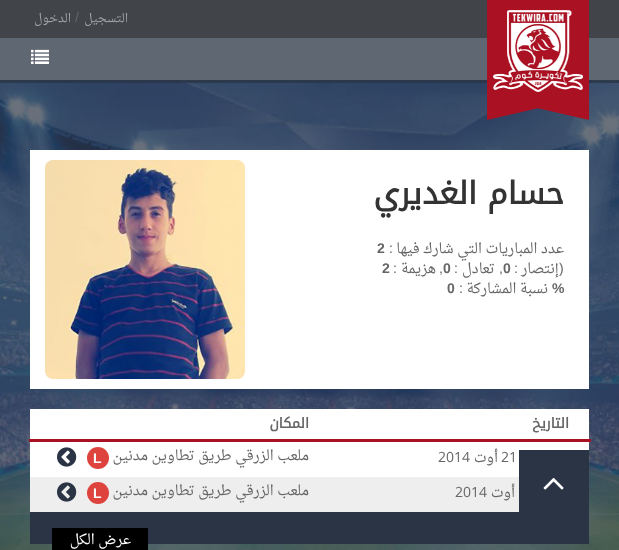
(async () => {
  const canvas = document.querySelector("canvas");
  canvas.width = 619;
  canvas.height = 550;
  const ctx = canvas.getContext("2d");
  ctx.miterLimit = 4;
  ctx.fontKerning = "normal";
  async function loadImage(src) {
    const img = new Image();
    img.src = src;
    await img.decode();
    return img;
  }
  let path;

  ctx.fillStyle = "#ffffff";
  ctx.fillRect(0, 0, 619, 550);
  ctx.fillStyle = "#414449";
  ctx.fillRect(0, 0, 619, 38);
  ctx.drawImage(await loadImage("img/3.png"), 0, 80, 619, 470);
  ctx.fillStyle = "rgba(42, 52, 68, 0.75)";
  ctx.fillRect(0, 38, 619, 45);
  ctx.fillStyle = "#aa1123";
  ctx.fillRect(487, 0, 102, 102);
  ctx.drawImage(await loadImage("img/1.png"), 493, 10, 90, 82);
  path = new Path2D("M487 102H565L487 120Z");
  ctx.fill(path);
  path = new Path2D("M589 102V120L511 102Z");
  ctx.fill(path);
  ctx.drawImage(await loadImage("img/2.png"), 31, 49, 18, 15);
  ctx.fillStyle = "#ffffff";
  ctx.fillRect(30, 150, 559, 239);
  ctx.drawImage(await loadImage("img/4.png"), 45, 160, 200, 219);
  for (const [x, y, w, h, color] of [
    [29, 439, 562, 3, "#aa1123"],
    [30, 409, 559, 30, "#ffffff"],
    [30, 442, 559, 35, "#ffffff"],
  ]) {
    ctx.fillStyle = color;
    ctx.fillRect(x, y, w, h);
  }
  ctx.fillStyle = "#de433e";
  ctx.beginPath();
  ctx.arc(98, 458, 11, 0, Math.PI * 2);
  ctx.fill();
  ctx.drawImage(await loadImage("img/5.png"), 57, 447, 20, 20);
  ctx.fillStyle = "#eeeeee";
  ctx.fillRect(30, 477, 489, 35);
  ctx.fillStyle = "#de433e";
  ctx.beginPath();
  ctx.arc(98, 493, 11, 0, Math.PI * 2);
  ctx.fill();
  ctx.drawImage(await loadImage("img/6.png"), 57, 482, 20, 20);
  for (const [x, y, w, h, color] of [
    [30, 512, 559, 32, "#2a3444"],
    [52, 528, 96, 22, "#000000"],
    [519, 450, 70, 62, "#2a3444"],
  ]) {
    ctx.fillStyle = color;
    ctx.fillRect(x, y, w, h);
  }
  ctx.drawImage(await loadImage("img/7.png"), 543, 478, 21, 12);
  ctx.direction = "rtl";
  ctx.font = "12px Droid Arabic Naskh";
  ctx.fillStyle = "#a0a2a4";
  ctx.fillText("التسجيل", 128, 22);
  ctx.direction = "ltr";
  ctx.font = "14px Liberation Sans";
  ctx.fillStyle = "#666666";
  ctx.fillText("/", 75, 22);
  ctx.direction = "rtl";
  ctx.font = "12px Droid Arabic Naskh";
  ctx.fillStyle = "#a0a2a4";
  ctx.fillText("الدخول", 71, 22);
  ctx.font = "bold 31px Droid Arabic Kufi";
  ctx.fillStyle = "#333333";
  ctx.fillText("حسام الغديري", 564, 204);
  ctx.font = "14px Droid Arabic Naskh";
  ctx.fillStyle = "#666666";
  ctx.fillText("عدد المباريات التي شارك فيها", 564, 253);
  ctx.font = "14px Liberation Sans";
  ctx.fillText(":", 393, 253);
  ctx.direction = "ltr";
  ctx.font = "bold 14px Liberation Sans";
  ctx.fillText("2", 377, 253);
  ctx.font = "14px Liberation Sans";
  ctx.fillText(")", 559, 273);
  ctx.direction = "rtl";
  ctx.font = "14px Droid Arabic Naskh";
  ctx.fillText("إنتصار", 559, 273);
  ctx.font = "14px Liberation Sans";
  ctx.fillText(":", 518, 273);
  ctx.direction = "ltr";
  ctx.font = "bold 14px Liberation Sans";
  ctx.fillText("0", 503, 273);
  ctx.direction = "rtl";
  ctx.font = "14px Liberation Sans";
  ctx.fillText(",", 503, 273);
  ctx.font = "14px Droid Arabic Naskh";
  ctx.fillText("تعادل", 495, 273);
  ctx.font = "14px Liberation Sans";
  ctx.fillText(":", 458, 273);
  ctx.direction = "ltr";
  ctx.font = "bold 14px Liberation Sans";
  ctx.fillText("0", 443, 273);
  ctx.direction = "rtl";
  ctx.font = "14px Liberation Sans";
  ctx.fillText(",", 443, 273);
  ctx.font = "14px Droid Arabic Naskh";
  ctx.fillText("هزيمة", 436, 273);
  ctx.font = "14px Liberation Sans";
  ctx.fillText(":", 397, 273);
  ctx.direction = "ltr";
  ctx.font = "bold 14px Liberation Sans";
  ctx.fillText("2", 382, 273);
  ctx.fillText("%", 552, 293);
  ctx.direction = "rtl";
  ctx.font = "14px Droid Arabic Naskh";
  ctx.fillText("نسبة المشاركة", 548, 293);
  ctx.font = "14px Liberation Sans";
  ctx.fillText(":", 463, 293);
  ctx.direction = "ltr";
  ctx.font = "bold 14px Liberation Sans";
  ctx.fillText("0", 447, 293);
  ctx.direction = "rtl";
  ctx.font = "bold 14px Droid Arabic Kufi";
  ctx.fillText("التاريخ", 569, 428);
  ctx.fillText("المكان", 309, 428);
  ctx.direction = "ltr";
  ctx.font = "14px Open Sans";
  ctx.fillText("21", 501, 462);
  ctx.direction = "rtl";
  ctx.font = "14px Droid Arabic Naskh";
  ctx.fillText("أوت", 498, 462);
  ctx.direction = "ltr";
  ctx.font = "14px Open Sans";
  ctx.fillText("2014", 438, 462);
  ctx.direction = "rtl";
  ctx.font = "14px Droid Arabic Naskh";
  ctx.fillText("ملعب الزرقي طريق تطاوين مدنين", 309, 460);
  ctx.direction = "ltr";
  ctx.font = "bold 14px Liberation Sans";
  ctx.fillStyle = "#ffffff";
  ctx.fillText("L", 93, 463);
  ctx.direction = "rtl";
  ctx.font = "14px Droid Arabic Naskh";
  ctx.fillStyle = "#666666";
  ctx.fillText("أوت", 515, 497);
  ctx.direction = "ltr";
  ctx.font = "14px Open Sans";
  ctx.fillText("2014", 455, 497);
  ctx.direction = "rtl";
  ctx.font = "14px Droid Arabic Naskh";
  ctx.fillText("ملعب الزرقي طريق تطاوين مدنين", 309, 495);
  ctx.direction = "ltr";
  ctx.font = "bold 14px Liberation Sans";
  ctx.fillStyle = "#ffffff";
  ctx.fillText("L", 93, 498);
  ctx.direction = "rtl";
  ctx.font = "14px Droid Arabic Naskh";
  ctx.fillText("عرض الكل", 131, 544);
})();
